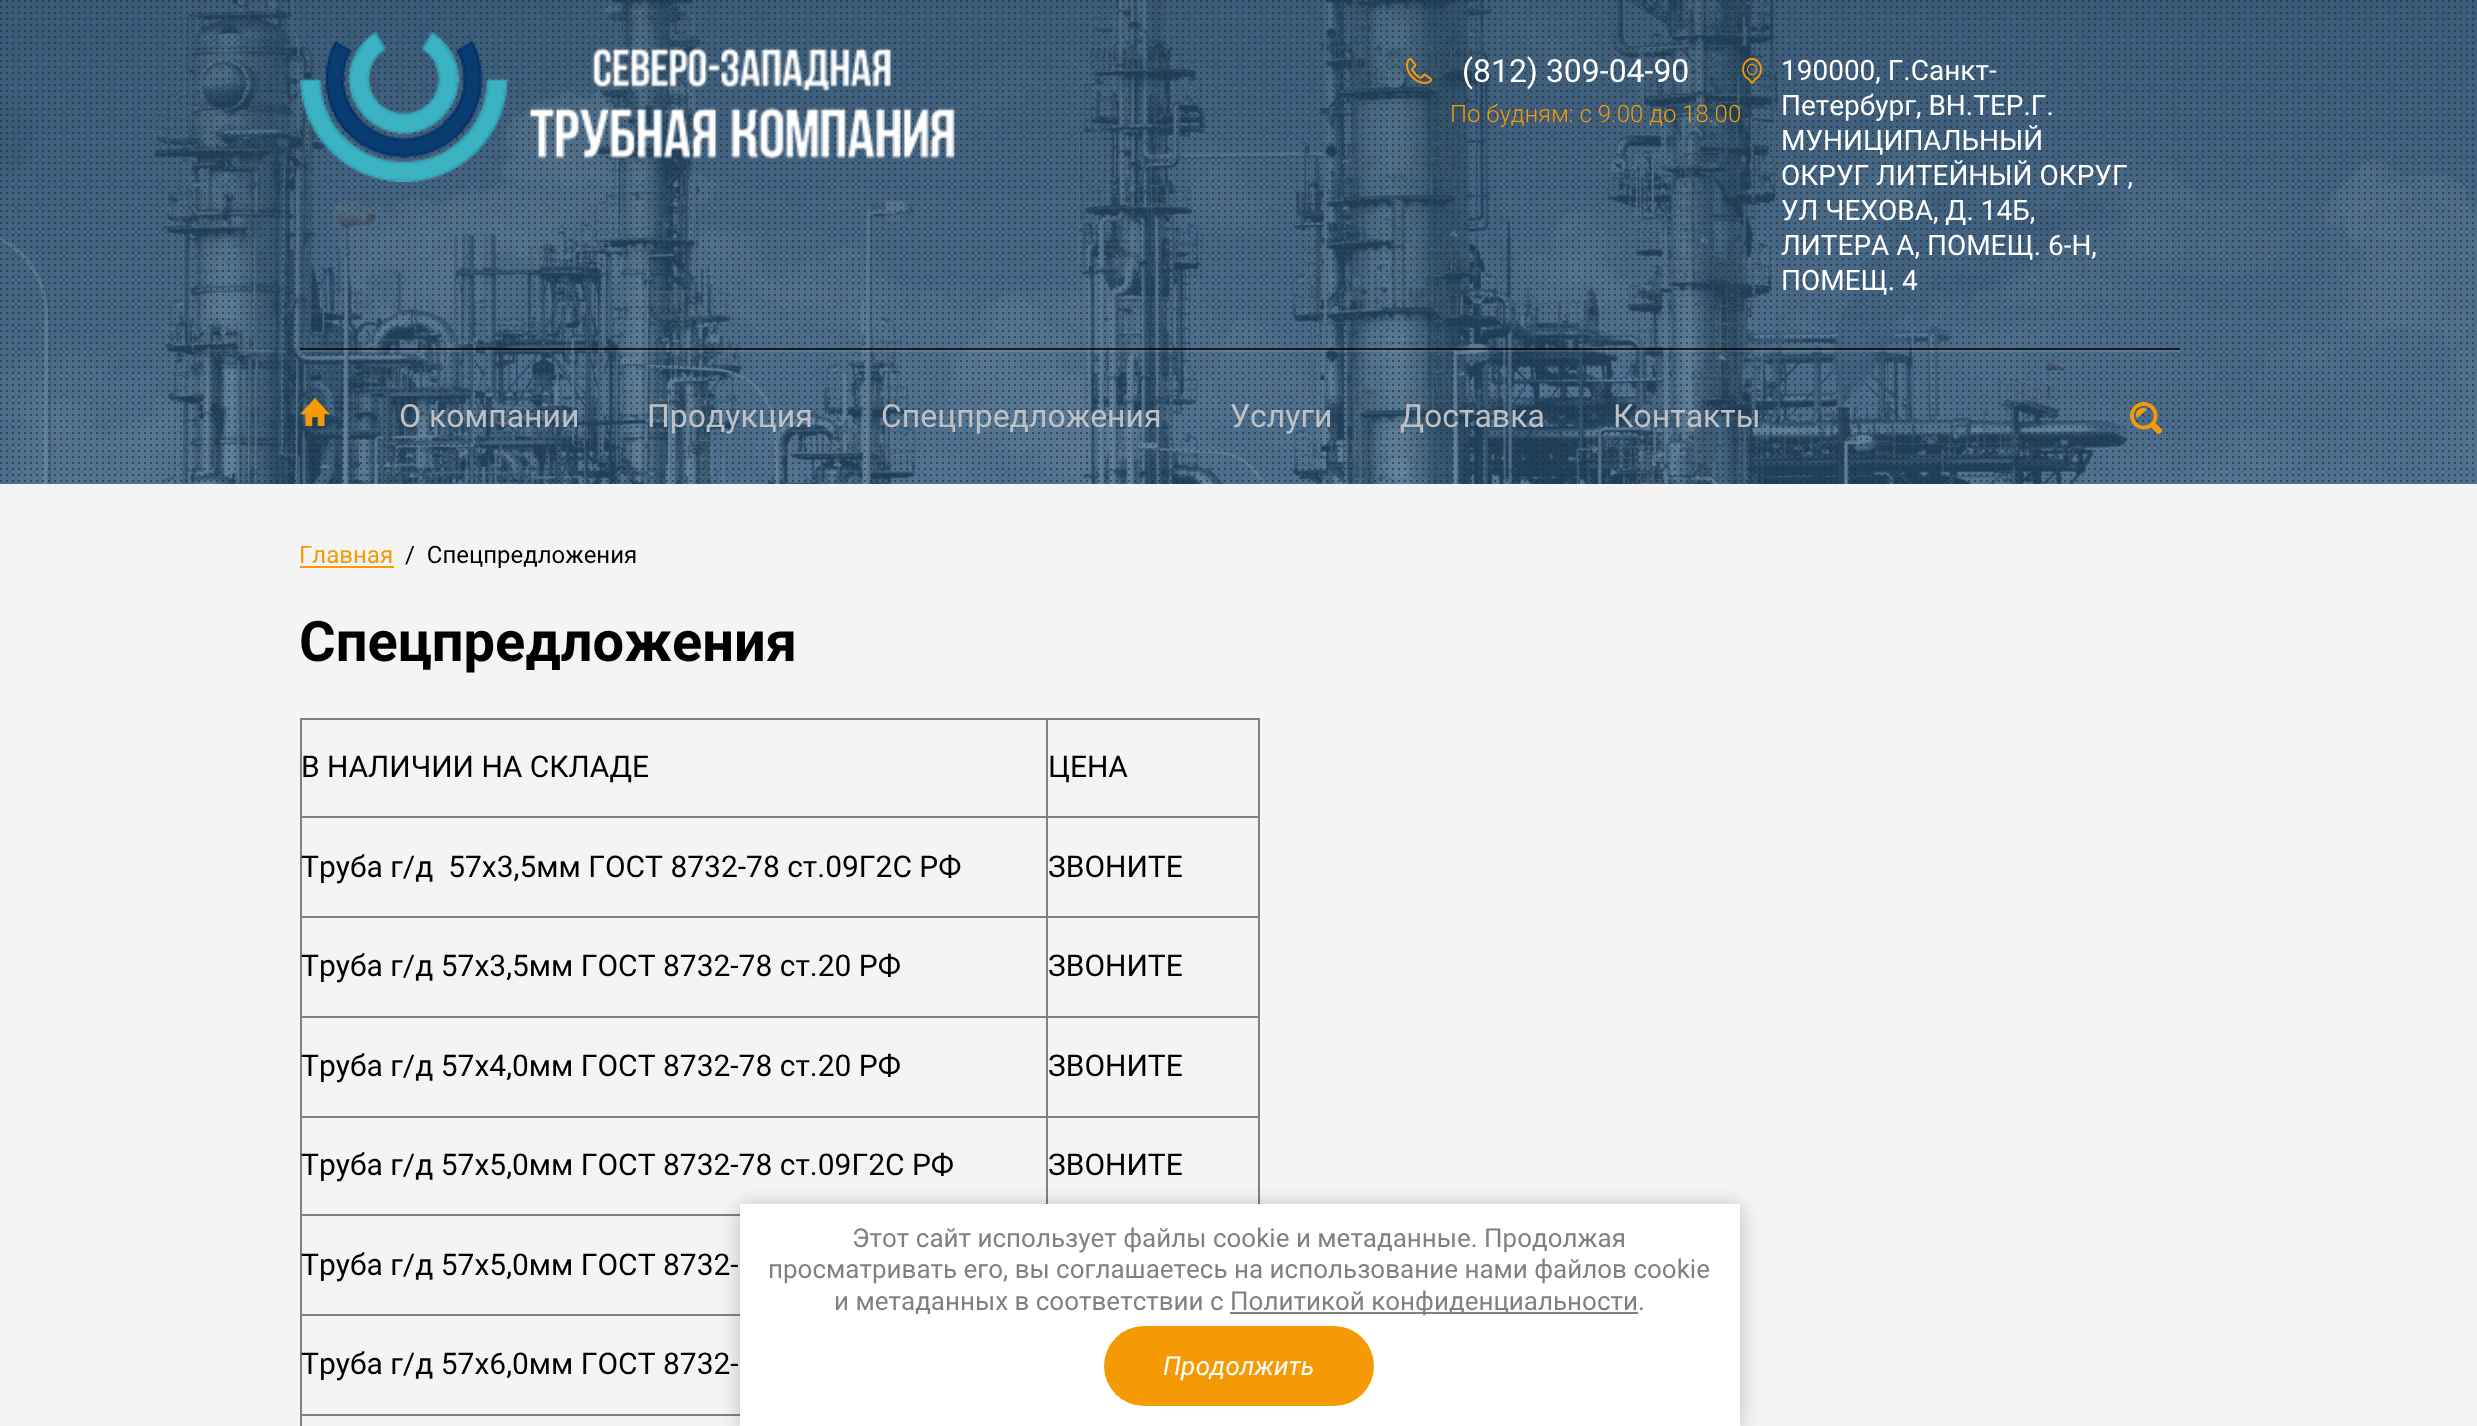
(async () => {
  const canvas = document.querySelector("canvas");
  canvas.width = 2477;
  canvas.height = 1426;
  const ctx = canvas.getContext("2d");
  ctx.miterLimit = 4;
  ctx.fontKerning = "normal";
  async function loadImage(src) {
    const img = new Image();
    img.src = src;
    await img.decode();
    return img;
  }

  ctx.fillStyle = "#f5f4f4";
  ctx.fillRect(0, 0, 2477, 1426);
  ctx.drawImage(await loadImage("img/1.png"), 0, 0, 2477, 484);
  ctx.drawImage(await loadImage("img/2.png"), 0, 0, 2474, 482);
  ctx.drawImage(await loadImage("img/3.png"), 300, 32, 655, 150);
  ctx.drawImage(await loadImage("img/4.png"), 1406, 58, 26, 26);
  ctx.drawImage(await loadImage("img/5.png"), 1742, 58, 20, 26);
  ctx.fillStyle = "rgba(0, 0, 0, 0.7)";
  ctx.fillRect(300, 348, 1880, 2);
  ctx.fillStyle = "rgba(255, 255, 255, 0.1)";
  ctx.fillRect(300, 350, 1880, 2);
  ctx.drawImage(await loadImage("img/6.png"), 300, 398, 30, 28);
  ctx.drawImage(await loadImage("img/7.png"), 2130, 402, 32, 32);
  for (const [x, y, w, h, color] of [
    [300, 566, 94, 2, "#f59a05"],
    [300, 718, 960, 2, "#808080"],
    [1258, 718, 2, 486, "#808080"],
    [300, 718, 2, 708, "#808080"],
    [1046, 816, 214, 2, "#808080"],
    [1046, 916, 214, 2, "#808080"],
    [1046, 1016, 214, 2, "#808080"],
    [1046, 1116, 214, 2, "#808080"],
    [1046, 1116, 2, 88, "#808080"],
    [300, 1116, 748, 2, "#808080"],
    [1046, 1016, 2, 102, "#808080"],
    [300, 1016, 748, 2, "#808080"],
    [1046, 916, 2, 102, "#808080"],
    [300, 916, 748, 2, "#808080"],
    [1046, 816, 2, 102, "#808080"],
    [300, 816, 748, 2, "#808080"],
    [1046, 718, 2, 100, "#808080"],
    [300, 1214, 440, 2, "#808080"],
    [300, 1314, 440, 2, "#808080"],
    [300, 1414, 440, 2, "#808080"],
  ]) {
    ctx.fillStyle = color;
    ctx.fillRect(x, y, w, h);
  }
  ctx.fillStyle = "rgba(0, 0, 0, 0.23)";
  ctx.filter = "blur(10px)";
  ctx.beginPath();
  ctx.rect(740, 1206, 1000, 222);
  ctx.fill();
  ctx.filter = "none";
  ctx.fillStyle = "#ffffff";
  ctx.fillRect(740, 1204, 1000, 222);
  ctx.fillStyle = "#808080";
  ctx.fillRect(1230, 1312, 408, 2);
  ctx.fillStyle = "#f59a05";
  ctx.beginPath();
  ctx.roundRect(1104, 1326, 270, 80, 40);
  ctx.fill();
  ctx.font = "32px Roboto";
  ctx.fillStyle = "#ffffff";
  ctx.fillText("(812) 309-04-90", 1462, 82);
  ctx.font = "300 24px Roboto";
  ctx.fillStyle = "#f59a05";
  ctx.fillText("По будням: с 9.00 до 18.00", 1450, 122);
  ctx.font = "28px Roboto";
  ctx.fillStyle = "#ffffff";
  for (const [text, x, y] of [
    ["190000, Г.Санкт-", 1781, 80],
    ["Петербург, ВН.ТЕР.Г.", 1781, 115],
    ["МУНИЦИПАЛЬНЫЙ", 1781, 150],
    ["ОКРУГ ЛИТЕЙНЫЙ ОКРУГ,", 1781, 185],
    ["УЛ ЧЕХОВА, Д. 14Б,", 1781, 220],
    ["ЛИТЕРА А, ПОМЕЩ. 6-Н,", 1781, 255],
    ["ПОМЕЩ. 4", 1781, 290],
  ]) {
    ctx.fillText(text, x, y);
  }
  ctx.font = "32px Roboto";
  ctx.fillStyle = "#bdc0c4";
  for (const [text, x, y] of [
    ["О компании", 399, 427],
    ["Продукция", 647, 427],
    ["Спецпредложения", 881, 427],
    ["Услуги", 1230, 427],
    ["Доставка", 1400, 427],
    ["Контакты", 1613, 427],
  ]) {
    ctx.fillText(text, x, y);
  }
  ctx.font = "24px Roboto";
  ctx.fillStyle = "#f59a05";
  ctx.fillText("Главная", 299, 563);
  ctx.fillStyle = "#000000";
  ctx.fillText("/  Спецпредложения", 405, 563);
  ctx.font = "bold 56px Roboto";
  ctx.fillText("Спецпредложения", 299, 661);
  ctx.font = "30px Roboto";
  for (const [text, x, y] of [
    ["В НАЛИЧИИ НА СКЛАДЕ", 301, 777],
    ["ЦЕНА", 1048, 777],
    ["Труба г/д  57х3,5мм ГОСТ 8732-78 ст.09Г2С РФ", 301, 877],
    ["ЗВОНИТЕ", 1048, 877],
    ["Труба г/д 57х3,5мм ГОСТ 8732-78 ст.20 РФ", 301, 976],
    ["ЗВОНИТЕ", 1048, 976],
    ["Труба г/д 57х4,0мм ГОСТ 8732-78 ст.20 РФ", 301, 1076],
    ["ЗВОНИТЕ", 1048, 1076],
    ["Труба г/д 57х5,0мм ГОСТ 8732-78 ст.09Г2С РФ", 301, 1175],
    ["ЗВОНИТЕ", 1048, 1175],
    ["Труба г/д 57х5,0мм ГОСТ 8732-", 301, 1275],
    ["Труба г/д 57х6,0мм ГОСТ 8732-", 301, 1374],
  ]) {
    ctx.fillText(text, x, y);
  }
  ctx.font = "26px Roboto";
  ctx.fillStyle = "#808080";
  for (const [text, x, y] of [
    ["Этот сайт использует файлы cookie и метаданные. Продолжая", 852, 1247],
    ["просматривать его, вы соглашаетесь на использование нами файлов cookie", 768, 1278],
    ["и метаданных в соответствии с", 834, 1310],
    ["Политикой конфиденциальности.", 1230, 1310],
  ]) {
    ctx.fillText(text, x, y);
  }
  ctx.font = "italic 26px Roboto";
  ctx.fillStyle = "#ffffff";
  ctx.fillText("Продолжить", 1163, 1375);
})();
